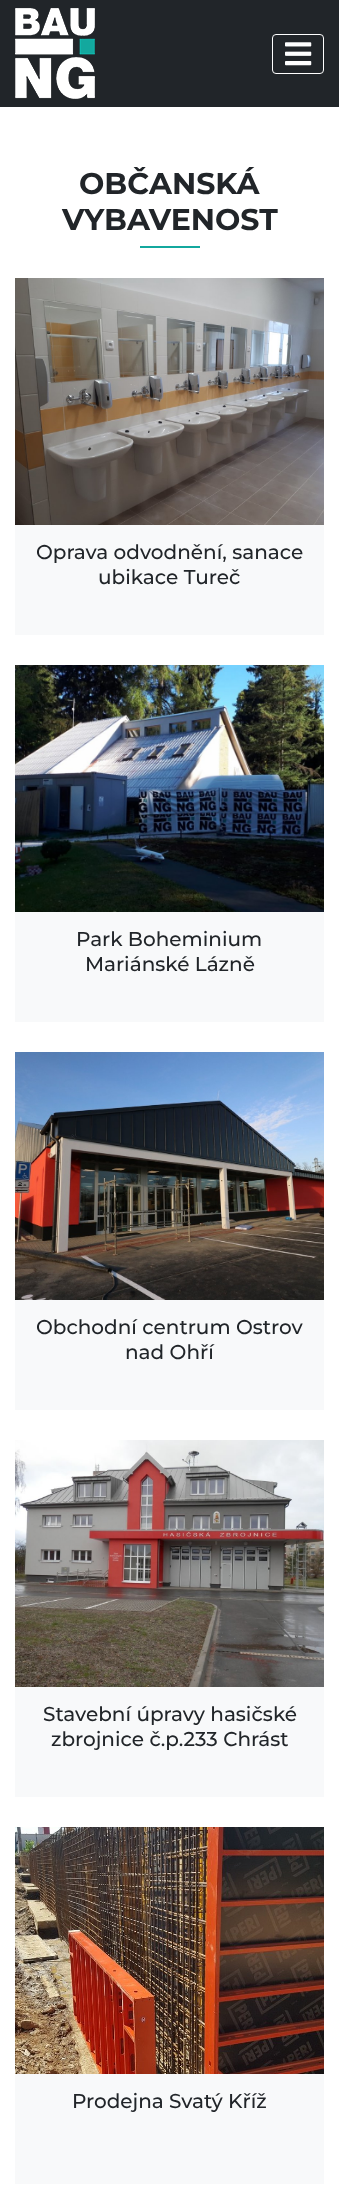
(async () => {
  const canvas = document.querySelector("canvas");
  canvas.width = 339;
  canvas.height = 2188;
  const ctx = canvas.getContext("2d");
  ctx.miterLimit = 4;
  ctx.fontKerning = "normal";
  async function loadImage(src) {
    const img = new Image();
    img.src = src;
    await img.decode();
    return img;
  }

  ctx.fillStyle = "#ffffff";
  ctx.fillRect(0, 0, 339, 2188);
  ctx.fillStyle = "#212529";
  ctx.fillRect(0, 0, 339, 107);
  ctx.drawImage(await loadImage("img/1.png"), 15, 8, 80, 91);
  ctx.beginPath();
  ctx.roundRect(272.5, 34.5, 51, 39, 3.5);
  ctx.strokeStyle = "#ffffff";
  ctx.stroke();
  ctx.drawImage(await loadImage("img/2.png"), 285, 42, 27, 24);
  ctx.fillStyle = "#13a89e";
  ctx.fillRect(140, 246, 60, 2);
  ctx.fillStyle = "#f8f9fa";
  ctx.fillRect(15, 525, 309, 110);
  ctx.drawImage(await loadImage("img/3.png"), 15, 278, 309, 247);
  ctx.fillRect(15, 912, 309, 110);
  ctx.drawImage(await loadImage("img/4.png"), 15, 665, 309, 247);
  ctx.fillRect(15, 1300, 309, 110);
  ctx.drawImage(await loadImage("img/5.png"), 15, 1052, 309, 248);
  ctx.fillRect(15, 1687, 309, 110);
  ctx.drawImage(await loadImage("img/6.png"), 15, 1440, 309, 247);
  ctx.fillRect(15, 2074, 309, 110);
  ctx.drawImage(await loadImage("img/7.png"), 15, 1827, 309, 247);
  ctx.font = "bold 30px Montserrat";
  ctx.fillStyle = "#212529";
  ctx.fillText("OBČANSKÁ", 79, 194);
  ctx.fillText("VYBAVENOST", 62, 230);
  ctx.font = "500 20px Montserrat";
  for (const [text, x, y] of [
    ["Oprava odvodnění, sanace", 36, 559],
    ["ubikace Tureč", 98, 584],
    ["Park Boheminium", 76, 946],
    ["Mariánské Lázně", 85, 971],
    ["Obchodní centrum Ostrov", 36, 1334],
    ["nad Ohří", 125, 1359],
    ["Stavební úpravy hasičské", 43, 1721],
    ["zbrojnice č.p.233 Chrást", 51, 1746],
    ["Prodejna Svatý Kříž", 72, 2108],
  ]) {
    ctx.fillText(text, x, y);
  }
})();
